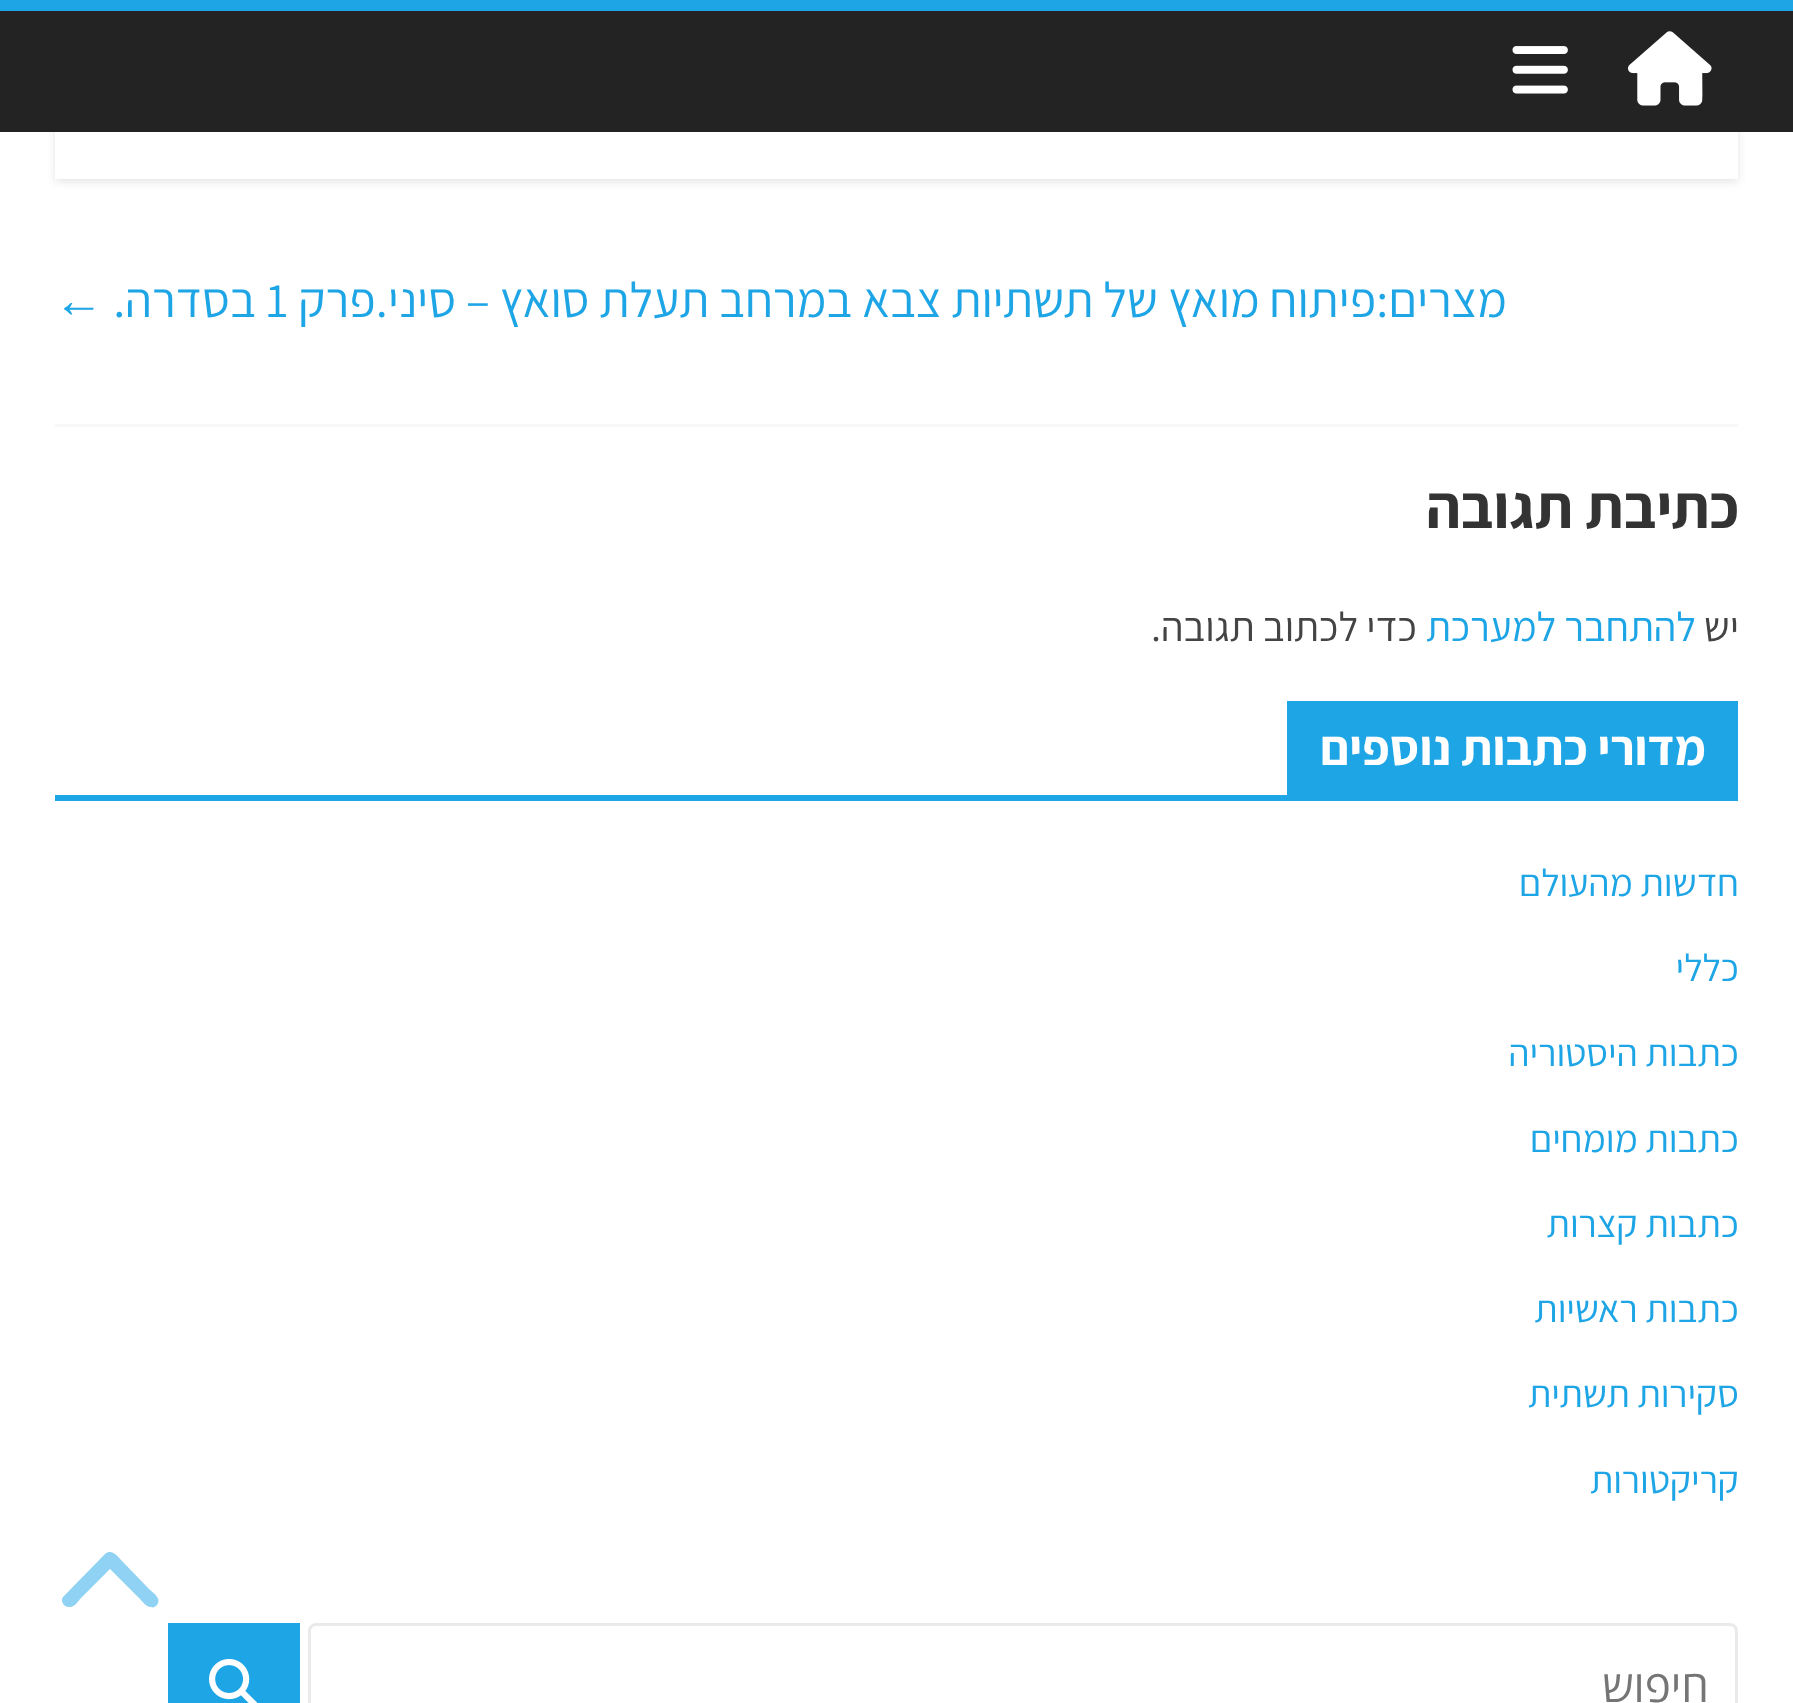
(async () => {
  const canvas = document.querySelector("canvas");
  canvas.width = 1793;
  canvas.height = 1703;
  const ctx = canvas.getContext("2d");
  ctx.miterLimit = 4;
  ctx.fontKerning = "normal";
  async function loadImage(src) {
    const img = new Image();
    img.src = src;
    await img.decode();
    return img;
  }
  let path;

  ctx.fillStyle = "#ffffff";
  ctx.fillRect(0, 0, 1793, 1703);
  ctx.save();
  path = new Path2D("M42 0H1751V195H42ZM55-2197H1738V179H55Z");
  ctx.clip(path, "evenodd");
  ctx.fillStyle = "rgba(0, 0, 0, 0.1)";
  ctx.filter = "blur(4px)";
  ctx.beginPath();
  ctx.rect(55, -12, 1683, 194);
  ctx.fill();
  ctx.filter = "none";
  ctx.restore();
  ctx.fillStyle = "#232323";
  ctx.fillRect(0, 11, 1793, 121);
  ctx.fillStyle = "#1ea5e6";
  ctx.fillRect(0, 0, 1793, 11);
  ctx.drawImage(await loadImage("img/1.png"), 1628, 31, 84, 75);
  ctx.drawImage(await loadImage("img/2.png"), 1512, 46, 56, 48);
  for (const [x, y, w, h, color] of [
    [55, 424, 1683, 3, "#f8f8f8"],
    [55, 795, 1683, 6, "#1ea5e6"],
    [1287, 701, 451, 94, "#1ea5e6"],
  ]) {
    ctx.fillStyle = color;
    ctx.fillRect(x, y, w, h);
  }
  ctx.beginPath();
  ctx.roundRect(309.5, 1624.5, 1427, 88, 6.5);
  ctx.strokeStyle = "#eaeaea";
  ctx.lineWidth = 3;
  ctx.stroke();
  ctx.fillRect(168, 1623, 132, 80);
  ctx.drawImage(await loadImage("img/3.png"), 209, 1658, 49, 45);
  ctx.fillStyle = "#8fd2f3";
  path = new Path2D("M105 1554C112 1548 118 1557 122 1561L149 1589C153 1593 162 1598 157 1605C155 1607 153 1608 151 1607C146 1607 143 1602 140 1599L110 1569L80 1599C78 1602 74 1607 70 1607C64 1608 59 1600 64 1596Z");
  ctx.fill(path);
  ctx.direction = "rtl";
  ctx.font = "49.5px Assistant";
  ctx.fillStyle = "#1ea5e6";
  ctx.fillText("מצרים:פיתוח מואץ של תשתיות צבא במרחב תעלת סואץ – סיני.פרק", 1507, 317);
  ctx.direction = "ltr";
  ctx.fillText("1", 266, 317);
  ctx.direction = "rtl";
  ctx.fillText("בסדרה.", 256, 317);
  ctx.direction = "ltr";
  ctx.font = "49.5px Liberation Serif";
  ctx.fillText("←", 54, 317);
  ctx.direction = "rtl";
  ctx.font = "bold 60.5px Assistant";
  ctx.fillStyle = "#333333";
  ctx.fillText("כתיבת תגובה", 1739, 528);
  ctx.font = "41.25px Assistant";
  ctx.fillStyle = "#444444";
  ctx.fillText("יש", 1739, 641);
  ctx.fillStyle = "#1ea5e6";
  ctx.fillText("להתחבר למערכת", 1696, 641);
  ctx.fillStyle = "#444444";
  ctx.fillText("כדי לכתוב תגובה.", 1417, 641);
  ctx.font = "bold 49.5px Assistant";
  ctx.fillStyle = "#ffffff";
  ctx.fillText("מדורי כתבות נוספים", 1706, 765);
  ctx.font = "38.5px Assistant";
  ctx.fillStyle = "#1ea5e6";
  for (const [text, x, y] of [
    ["חדשות מהעולם", 1739, 896],
    ["כללי", 1739, 981],
    ["כתבות היסטוריה", 1739, 1066],
    ["כתבות מומחים", 1739, 1152],
    ["כתבות קצרות", 1739, 1237],
    ["כתבות ראשיות", 1739, 1322],
    ["סקירות תשתית", 1739, 1407],
    ["קריקטורות", 1739, 1493],
  ]) {
    ctx.fillText(text, x, y);
  }
  ctx.font = "44px Open Sans";
  ctx.fillStyle = "#757575";
  ctx.fillText("חיפוש", 1709, 1702);
})();
